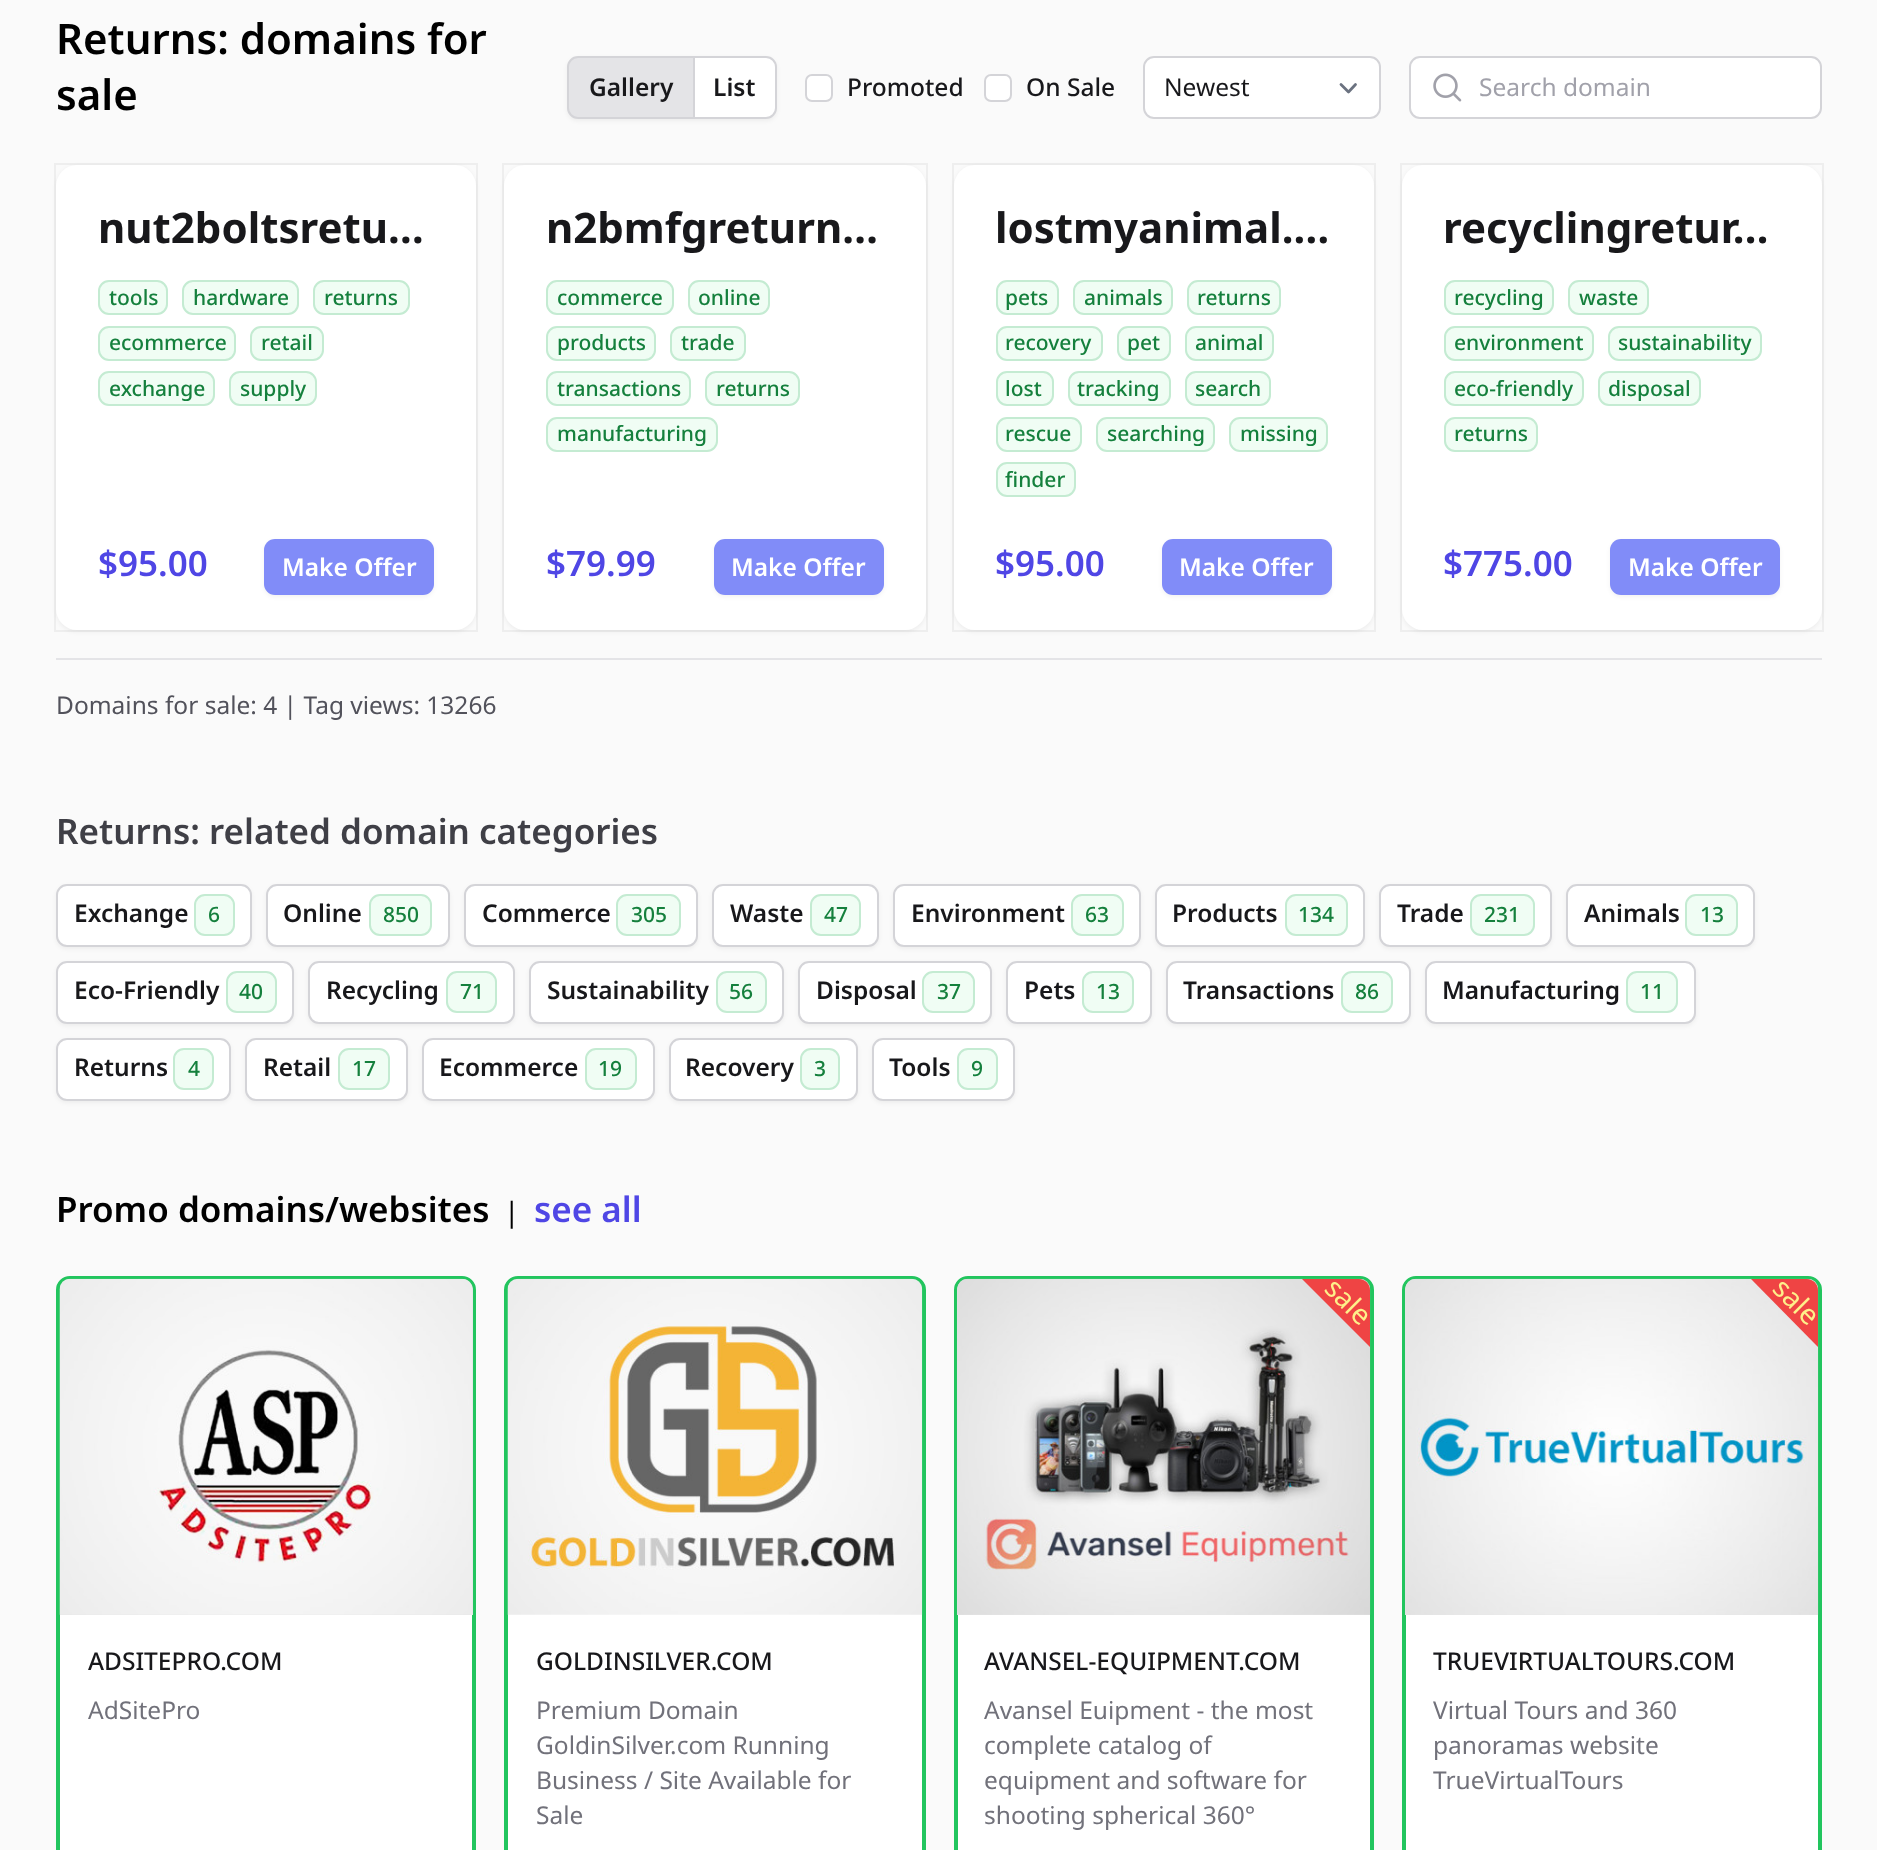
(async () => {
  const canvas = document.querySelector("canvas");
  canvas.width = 1877;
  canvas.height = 1850;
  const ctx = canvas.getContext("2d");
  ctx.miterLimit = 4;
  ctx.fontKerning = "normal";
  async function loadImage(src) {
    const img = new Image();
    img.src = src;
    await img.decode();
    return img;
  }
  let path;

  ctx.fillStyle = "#fafafa";
  ctx.fillRect(0, 0, 1877, 1850);
  ctx.fillStyle = "rgba(0, 0, 0, 0.05)";
  ctx.filter = "blur(2px)";
  ctx.beginPath();
  ctx.roundRect(567, 58, 210, 63, 11);
  ctx.fill();
  ctx.filter = "none";
  ctx.fillStyle = "#e4e4e7";
  ctx.beginPath();
  ctx.roundRect(568, 57, 126, 61, [10, 0, 0, 10]);
  ctx.fill();
  ctx.strokeStyle = "#d4d4d8";
  ctx.lineWidth = 2;
  ctx.stroke();
  ctx.fillStyle = "#ffffff";
  ctx.beginPath();
  ctx.roundRect(694, 57, 82, 61, [0, 10, 10, 0]);
  ctx.fill();
  ctx.stroke();
  ctx.beginPath();
  ctx.roundRect(806, 75, 26, 26, 6);
  ctx.fill();
  ctx.stroke();
  ctx.beginPath();
  ctx.roundRect(985, 75, 26, 26, 6);
  ctx.fill();
  ctx.stroke();
  ctx.beginPath();
  ctx.roundRect(1143, 56, 238, 63, 11);
  ctx.fill();
  path = new Path2D("M1341 84.5L1348.5 92L1355.5 84.5");
  ctx.strokeStyle = "#6b7280";
  ctx.lineWidth = 2.8;
  ctx.lineCap = "round";
  ctx.lineJoin = "round";
  ctx.stroke(path);
  ctx.beginPath();
  ctx.roundRect(1144, 57, 236, 61, 10);
  ctx.strokeStyle = "#d4d4d8";
  ctx.lineWidth = 2;
  ctx.lineJoin = "miter";
  ctx.stroke();
  ctx.beginPath();
  ctx.roundRect(1410, 57, 411, 61, 10);
  ctx.fill();
  ctx.stroke();
  ctx.drawImage(await loadImage("img/1.png"), 1433, 73, 29, 29);
  ctx.fillStyle = "rgba(0, 0, 0, 0.05)";
  ctx.filter = "blur(2px)";
  ctx.beginPath();
  ctx.roundRect(56, 166, 420, 466, 21);
  ctx.fill();
  ctx.filter = "none";
  ctx.strokeStyle = "rgba(24, 24, 27, 0.05)";
  ctx.strokeRect(55, 164, 422, 467);
  ctx.fillStyle = "#ffffff";
  ctx.beginPath();
  ctx.roundRect(56, 165, 420, 465, 21);
  ctx.fill();
  ctx.fillStyle = "#f0fdf4";
  ctx.beginPath();
  ctx.roundRect(98, 280, 70, 35, 11);
  ctx.fill();
  ctx.beginPath();
  ctx.roundRect(99, 281, 68, 33, 10);
  ctx.strokeStyle = "rgba(22, 163, 74, 0.2)";
  ctx.stroke();
  ctx.beginPath();
  ctx.roundRect(182, 280, 117, 35, 11);
  ctx.fill();
  ctx.beginPath();
  ctx.roundRect(183, 281, 115, 33, 10);
  ctx.stroke();
  ctx.beginPath();
  ctx.roundRect(313, 280, 97, 35, 11);
  ctx.fill();
  ctx.beginPath();
  ctx.roundRect(314, 281, 95, 33, 10);
  ctx.stroke();
  ctx.beginPath();
  ctx.roundRect(98, 326, 138, 35, 11);
  ctx.fill();
  ctx.beginPath();
  ctx.roundRect(99, 327, 136, 33, 10);
  ctx.stroke();
  ctx.beginPath();
  ctx.roundRect(250, 326, 74, 35, 11);
  ctx.fill();
  ctx.beginPath();
  ctx.roundRect(251, 327, 72, 33, 10);
  ctx.stroke();
  ctx.beginPath();
  ctx.roundRect(98, 371, 117, 35, 11);
  ctx.fill();
  ctx.beginPath();
  ctx.roundRect(99, 372, 115, 33, 10);
  ctx.stroke();
  ctx.beginPath();
  ctx.roundRect(229, 371, 88, 35, 11);
  ctx.fill();
  ctx.beginPath();
  ctx.roundRect(230, 372, 86, 33, 10);
  ctx.stroke();
  ctx.fillStyle = "rgba(0, 0, 0, 0.05)";
  ctx.filter = "blur(2px)";
  ctx.beginPath();
  ctx.roundRect(264, 541, 170, 56, 11);
  ctx.fill();
  ctx.filter = "none";
  ctx.fillStyle = "#818cf8";
  ctx.beginPath();
  ctx.roundRect(264, 539, 170, 56, 11);
  ctx.fill();
  ctx.fillStyle = "rgba(0, 0, 0, 0.05)";
  ctx.filter = "blur(2px)";
  ctx.beginPath();
  ctx.roundRect(504, 166, 422, 466, 21);
  ctx.fill();
  ctx.filter = "none";
  ctx.strokeStyle = "rgba(24, 24, 27, 0.05)";
  ctx.strokeRect(503, 164, 424, 467);
  ctx.fillStyle = "#ffffff";
  ctx.beginPath();
  ctx.roundRect(504, 165, 422, 465, 21);
  ctx.fill();
  ctx.fillStyle = "#f0fdf4";
  ctx.beginPath();
  ctx.roundRect(546, 280, 128, 35, 11);
  ctx.fill();
  ctx.beginPath();
  ctx.roundRect(547, 281, 126, 33, 10);
  ctx.strokeStyle = "rgba(22, 163, 74, 0.2)";
  ctx.stroke();
  ctx.beginPath();
  ctx.roundRect(688, 280, 82, 35, 11);
  ctx.fill();
  ctx.beginPath();
  ctx.roundRect(689, 281, 80, 33, 10);
  ctx.stroke();
  ctx.beginPath();
  ctx.roundRect(546, 326, 110, 35, 11);
  ctx.fill();
  ctx.beginPath();
  ctx.roundRect(547, 327, 108, 33, 10);
  ctx.stroke();
  ctx.beginPath();
  ctx.roundRect(670, 326, 76, 35, 11);
  ctx.fill();
  ctx.beginPath();
  ctx.roundRect(671, 327, 74, 33, 10);
  ctx.stroke();
  ctx.beginPath();
  ctx.roundRect(546, 371, 145, 35, 11);
  ctx.fill();
  ctx.beginPath();
  ctx.roundRect(547, 372, 143, 33, 10);
  ctx.stroke();
  ctx.beginPath();
  ctx.roundRect(705, 371, 95, 35, 11);
  ctx.fill();
  ctx.beginPath();
  ctx.roundRect(706, 372, 93, 33, 10);
  ctx.stroke();
  ctx.beginPath();
  ctx.roundRect(546, 417, 172, 35, 11);
  ctx.fill();
  ctx.beginPath();
  ctx.roundRect(547, 418, 170, 33, 10);
  ctx.stroke();
  ctx.fillStyle = "rgba(0, 0, 0, 0.05)";
  ctx.filter = "blur(2px)";
  ctx.beginPath();
  ctx.roundRect(714, 541, 170, 56, 11);
  ctx.fill();
  ctx.filter = "none";
  ctx.fillStyle = "#818cf8";
  ctx.beginPath();
  ctx.roundRect(714, 539, 170, 56, 11);
  ctx.fill();
  ctx.fillStyle = "rgba(0, 0, 0, 0.05)";
  ctx.filter = "blur(2px)";
  ctx.beginPath();
  ctx.roundRect(954, 166, 420, 466, 21);
  ctx.fill();
  ctx.filter = "none";
  ctx.strokeStyle = "rgba(24, 24, 27, 0.05)";
  ctx.strokeRect(953, 164, 422, 467);
  ctx.fillStyle = "#ffffff";
  ctx.beginPath();
  ctx.roundRect(954, 165, 420, 465, 21);
  ctx.fill();
  ctx.fillStyle = "#f0fdf4";
  ctx.beginPath();
  ctx.roundRect(996, 280, 63, 35, 11);
  ctx.fill();
  ctx.beginPath();
  ctx.roundRect(997, 281, 61, 33, 10);
  ctx.strokeStyle = "rgba(22, 163, 74, 0.2)";
  ctx.stroke();
  ctx.beginPath();
  ctx.roundRect(1073, 280, 100, 35, 11);
  ctx.fill();
  ctx.beginPath();
  ctx.roundRect(1074, 281, 98, 33, 10);
  ctx.stroke();
  ctx.beginPath();
  ctx.roundRect(1187, 280, 94, 35, 11);
  ctx.fill();
  ctx.beginPath();
  ctx.roundRect(1188, 281, 92, 33, 10);
  ctx.stroke();
  ctx.beginPath();
  ctx.roundRect(996, 326, 107, 35, 11);
  ctx.fill();
  ctx.beginPath();
  ctx.roundRect(997, 327, 105, 33, 10);
  ctx.stroke();
  ctx.beginPath();
  ctx.roundRect(1117, 326, 54, 35, 11);
  ctx.fill();
  ctx.beginPath();
  ctx.roundRect(1118, 327, 52, 33, 10);
  ctx.stroke();
  ctx.beginPath();
  ctx.roundRect(1185, 326, 89, 35, 11);
  ctx.fill();
  ctx.beginPath();
  ctx.roundRect(1186, 327, 87, 33, 10);
  ctx.stroke();
  ctx.beginPath();
  ctx.roundRect(996, 371, 58, 35, 11);
  ctx.fill();
  ctx.beginPath();
  ctx.roundRect(997, 372, 56, 33, 10);
  ctx.stroke();
  ctx.beginPath();
  ctx.roundRect(1068, 371, 103, 35, 11);
  ctx.fill();
  ctx.beginPath();
  ctx.roundRect(1069, 372, 101, 33, 10);
  ctx.stroke();
  ctx.beginPath();
  ctx.roundRect(1185, 371, 86, 35, 11);
  ctx.fill();
  ctx.beginPath();
  ctx.roundRect(1186, 372, 84, 33, 10);
  ctx.stroke();
  ctx.beginPath();
  ctx.roundRect(996, 417, 86, 35, 11);
  ctx.fill();
  ctx.beginPath();
  ctx.roundRect(997, 418, 84, 33, 10);
  ctx.stroke();
  ctx.beginPath();
  ctx.roundRect(1096, 417, 119, 35, 11);
  ctx.fill();
  ctx.beginPath();
  ctx.roundRect(1097, 418, 117, 33, 10);
  ctx.stroke();
  ctx.beginPath();
  ctx.roundRect(1229, 417, 99, 35, 11);
  ctx.fill();
  ctx.beginPath();
  ctx.roundRect(1230, 418, 97, 33, 10);
  ctx.stroke();
  ctx.beginPath();
  ctx.roundRect(996, 462, 80, 35, 11);
  ctx.fill();
  ctx.beginPath();
  ctx.roundRect(997, 463, 78, 33, 10);
  ctx.stroke();
  ctx.fillStyle = "rgba(0, 0, 0, 0.05)";
  ctx.filter = "blur(2px)";
  ctx.beginPath();
  ctx.roundRect(1162, 541, 170, 56, 11);
  ctx.fill();
  ctx.filter = "none";
  ctx.fillStyle = "#818cf8";
  ctx.beginPath();
  ctx.roundRect(1162, 539, 170, 56, 11);
  ctx.fill();
  ctx.fillStyle = "rgba(0, 0, 0, 0.05)";
  ctx.filter = "blur(2px)";
  ctx.beginPath();
  ctx.roundRect(1402, 166, 420, 466, 21);
  ctx.fill();
  ctx.filter = "none";
  ctx.strokeStyle = "rgba(24, 24, 27, 0.05)";
  ctx.strokeRect(1401, 164, 422, 467);
  ctx.fillStyle = "#ffffff";
  ctx.beginPath();
  ctx.roundRect(1402, 165, 420, 465, 21);
  ctx.fill();
  ctx.fillStyle = "#f0fdf4";
  ctx.beginPath();
  ctx.roundRect(1444, 280, 110, 35, 11);
  ctx.fill();
  ctx.beginPath();
  ctx.roundRect(1445, 281, 108, 33, 10);
  ctx.strokeStyle = "rgba(22, 163, 74, 0.2)";
  ctx.stroke();
  ctx.beginPath();
  ctx.roundRect(1568, 280, 81, 35, 11);
  ctx.fill();
  ctx.beginPath();
  ctx.roundRect(1569, 281, 79, 33, 10);
  ctx.stroke();
  ctx.beginPath();
  ctx.roundRect(1444, 326, 150, 35, 11);
  ctx.fill();
  ctx.beginPath();
  ctx.roundRect(1445, 327, 148, 33, 10);
  ctx.stroke();
  ctx.beginPath();
  ctx.roundRect(1608, 326, 154, 35, 11);
  ctx.fill();
  ctx.beginPath();
  ctx.roundRect(1609, 327, 152, 33, 10);
  ctx.stroke();
  ctx.beginPath();
  ctx.roundRect(1444, 371, 140, 35, 11);
  ctx.fill();
  ctx.beginPath();
  ctx.roundRect(1445, 372, 138, 33, 10);
  ctx.stroke();
  ctx.beginPath();
  ctx.roundRect(1598, 371, 103, 35, 11);
  ctx.fill();
  ctx.beginPath();
  ctx.roundRect(1599, 372, 101, 33, 10);
  ctx.stroke();
  ctx.beginPath();
  ctx.roundRect(1444, 417, 94, 35, 11);
  ctx.fill();
  ctx.beginPath();
  ctx.roundRect(1445, 418, 92, 33, 10);
  ctx.stroke();
  ctx.fillStyle = "rgba(0, 0, 0, 0.05)";
  ctx.filter = "blur(2px)";
  ctx.beginPath();
  ctx.roundRect(1610, 541, 170, 56, 11);
  ctx.fill();
  ctx.filter = "none";
  ctx.fillStyle = "#818cf8";
  ctx.beginPath();
  ctx.roundRect(1610, 539, 170, 56, 11);
  ctx.fill();
  ctx.fillStyle = "#e4e4e7";
  ctx.fillRect(56, 658, 1766, 2);
  ctx.fillStyle = "rgba(0, 0, 0, 0.05)";
  ctx.filter = "blur(2px)";
  ctx.beginPath();
  ctx.roundRect(56, 886, 196, 63, 11);
  ctx.fill();
  ctx.filter = "none";
  ctx.fillStyle = "#ffffff";
  ctx.beginPath();
  ctx.roundRect(57, 885, 194, 61, 10);
  ctx.fill();
  ctx.strokeStyle = "#d4d4d8";
  ctx.stroke();
  ctx.fillStyle = "#f0fdf4";
  ctx.beginPath();
  ctx.roundRect(194, 894, 41, 42, 11);
  ctx.fill();
  ctx.beginPath();
  ctx.roundRect(195, 895, 39, 40, 10);
  ctx.strokeStyle = "rgba(22, 163, 74, 0.2)";
  ctx.stroke();
  ctx.fillStyle = "rgba(0, 0, 0, 0.05)";
  ctx.filter = "blur(2px)";
  ctx.beginPath();
  ctx.roundRect(266, 886, 184, 63, 11);
  ctx.fill();
  ctx.filter = "none";
  ctx.fillStyle = "#ffffff";
  ctx.beginPath();
  ctx.roundRect(267, 885, 182, 61, 10);
  ctx.fill();
  ctx.strokeStyle = "#d4d4d8";
  ctx.stroke();
  ctx.fillStyle = "#f0fdf4";
  ctx.beginPath();
  ctx.roundRect(369, 894, 63, 42, 11);
  ctx.fill();
  ctx.beginPath();
  ctx.roundRect(370, 895, 61, 40, 10);
  ctx.strokeStyle = "rgba(22, 163, 74, 0.2)";
  ctx.stroke();
  ctx.fillStyle = "rgba(0, 0, 0, 0.05)";
  ctx.filter = "blur(2px)";
  ctx.beginPath();
  ctx.roundRect(464, 886, 234, 63, 11);
  ctx.fill();
  ctx.filter = "none";
  ctx.fillStyle = "#ffffff";
  ctx.beginPath();
  ctx.roundRect(465, 885, 232, 61, 10);
  ctx.fill();
  ctx.strokeStyle = "#d4d4d8";
  ctx.stroke();
  ctx.fillStyle = "#f0fdf4";
  ctx.beginPath();
  ctx.roundRect(616, 894, 65, 42, 11);
  ctx.fill();
  ctx.beginPath();
  ctx.roundRect(617, 895, 63, 40, 10);
  ctx.strokeStyle = "rgba(22, 163, 74, 0.2)";
  ctx.stroke();
  ctx.fillStyle = "rgba(0, 0, 0, 0.05)";
  ctx.filter = "blur(2px)";
  ctx.beginPath();
  ctx.roundRect(712, 886, 167, 63, 11);
  ctx.fill();
  ctx.filter = "none";
  ctx.fillStyle = "#ffffff";
  ctx.beginPath();
  ctx.roundRect(713, 885, 165, 61, 10);
  ctx.fill();
  ctx.strokeStyle = "#d4d4d8";
  ctx.stroke();
  ctx.fillStyle = "#f0fdf4";
  ctx.beginPath();
  ctx.roundRect(810, 894, 51, 42, 11);
  ctx.fill();
  ctx.beginPath();
  ctx.roundRect(811, 895, 49, 40, 10);
  ctx.strokeStyle = "rgba(22, 163, 74, 0.2)";
  ctx.stroke();
  ctx.fillStyle = "rgba(0, 0, 0, 0.05)";
  ctx.filter = "blur(2px)";
  ctx.beginPath();
  ctx.roundRect(893, 886, 248, 63, 11);
  ctx.fill();
  ctx.filter = "none";
  ctx.fillStyle = "#ffffff";
  ctx.beginPath();
  ctx.roundRect(894, 885, 246, 61, 10);
  ctx.fill();
  ctx.strokeStyle = "#d4d4d8";
  ctx.stroke();
  ctx.fillStyle = "#f0fdf4";
  ctx.beginPath();
  ctx.roundRect(1071, 894, 53, 42, 11);
  ctx.fill();
  ctx.beginPath();
  ctx.roundRect(1072, 895, 51, 40, 10);
  ctx.strokeStyle = "rgba(22, 163, 74, 0.2)";
  ctx.stroke();
  ctx.fillStyle = "rgba(0, 0, 0, 0.05)";
  ctx.filter = "blur(2px)";
  ctx.beginPath();
  ctx.roundRect(1155, 886, 210, 63, 11);
  ctx.fill();
  ctx.filter = "none";
  ctx.fillStyle = "#ffffff";
  ctx.beginPath();
  ctx.roundRect(1156, 885, 208, 61, 10);
  ctx.fill();
  ctx.strokeStyle = "#d4d4d8";
  ctx.stroke();
  ctx.fillStyle = "#f0fdf4";
  ctx.beginPath();
  ctx.roundRect(1285, 894, 63, 42, 11);
  ctx.fill();
  ctx.beginPath();
  ctx.roundRect(1286, 895, 61, 40, 10);
  ctx.strokeStyle = "rgba(22, 163, 74, 0.2)";
  ctx.stroke();
  ctx.fillStyle = "rgba(0, 0, 0, 0.05)";
  ctx.filter = "blur(2px)";
  ctx.beginPath();
  ctx.roundRect(1379, 886, 173, 63, 11);
  ctx.fill();
  ctx.filter = "none";
  ctx.fillStyle = "#ffffff";
  ctx.beginPath();
  ctx.roundRect(1380, 885, 171, 61, 10);
  ctx.fill();
  ctx.strokeStyle = "#d4d4d8";
  ctx.stroke();
  ctx.fillStyle = "#f0fdf4";
  ctx.beginPath();
  ctx.roundRect(1470, 894, 65, 42, 11);
  ctx.fill();
  ctx.beginPath();
  ctx.roundRect(1471, 895, 63, 40, 10);
  ctx.strokeStyle = "rgba(22, 163, 74, 0.2)";
  ctx.stroke();
  ctx.fillStyle = "rgba(0, 0, 0, 0.05)";
  ctx.filter = "blur(2px)";
  ctx.beginPath();
  ctx.roundRect(1566, 886, 189, 63, 11);
  ctx.fill();
  ctx.filter = "none";
  ctx.fillStyle = "#ffffff";
  ctx.beginPath();
  ctx.roundRect(1567, 885, 187, 61, 10);
  ctx.fill();
  ctx.strokeStyle = "#d4d4d8";
  ctx.stroke();
  ctx.fillStyle = "#f0fdf4";
  ctx.beginPath();
  ctx.roundRect(1685, 894, 53, 42, 11);
  ctx.fill();
  ctx.beginPath();
  ctx.roundRect(1686, 895, 51, 40, 10);
  ctx.strokeStyle = "rgba(22, 163, 74, 0.2)";
  ctx.stroke();
  ctx.fillStyle = "rgba(0, 0, 0, 0.05)";
  ctx.filter = "blur(2px)";
  ctx.beginPath();
  ctx.roundRect(56, 963, 238, 63, 11);
  ctx.fill();
  ctx.filter = "none";
  ctx.fillStyle = "#ffffff";
  ctx.beginPath();
  ctx.roundRect(57, 962, 236, 61, 10);
  ctx.fill();
  ctx.strokeStyle = "#d4d4d8";
  ctx.stroke();
  ctx.fillStyle = "#f0fdf4";
  ctx.beginPath();
  ctx.roundRect(226, 971, 51, 42, 11);
  ctx.fill();
  ctx.beginPath();
  ctx.roundRect(227, 972, 49, 40, 10);
  ctx.strokeStyle = "rgba(22, 163, 74, 0.2)";
  ctx.stroke();
  ctx.fillStyle = "rgba(0, 0, 0, 0.05)";
  ctx.filter = "blur(2px)";
  ctx.beginPath();
  ctx.roundRect(308, 963, 207, 63, 11);
  ctx.fill();
  ctx.filter = "none";
  ctx.fillStyle = "#ffffff";
  ctx.beginPath();
  ctx.roundRect(309, 962, 205, 61, 10);
  ctx.fill();
  ctx.strokeStyle = "#d4d4d8";
  ctx.stroke();
  ctx.fillStyle = "#f0fdf4";
  ctx.beginPath();
  ctx.roundRect(446, 971, 51, 42, 11);
  ctx.fill();
  ctx.beginPath();
  ctx.roundRect(447, 972, 49, 40, 10);
  ctx.strokeStyle = "rgba(22, 163, 74, 0.2)";
  ctx.stroke();
  ctx.fillStyle = "rgba(0, 0, 0, 0.05)";
  ctx.filter = "blur(2px)";
  ctx.beginPath();
  ctx.roundRect(529, 963, 255, 63, 11);
  ctx.fill();
  ctx.filter = "none";
  ctx.fillStyle = "#ffffff";
  ctx.beginPath();
  ctx.roundRect(530, 962, 253, 61, 10);
  ctx.fill();
  ctx.strokeStyle = "#d4d4d8";
  ctx.stroke();
  ctx.fillStyle = "#f0fdf4";
  ctx.beginPath();
  ctx.roundRect(716, 971, 51, 42, 11);
  ctx.fill();
  ctx.beginPath();
  ctx.roundRect(717, 972, 49, 40, 10);
  ctx.strokeStyle = "rgba(22, 163, 74, 0.2)";
  ctx.stroke();
  ctx.fillStyle = "rgba(0, 0, 0, 0.05)";
  ctx.filter = "blur(2px)";
  ctx.beginPath();
  ctx.roundRect(798, 963, 194, 63, 11);
  ctx.fill();
  ctx.filter = "none";
  ctx.fillStyle = "#ffffff";
  ctx.beginPath();
  ctx.roundRect(799, 962, 192, 61, 10);
  ctx.fill();
  ctx.strokeStyle = "#d4d4d8";
  ctx.stroke();
  ctx.fillStyle = "#f0fdf4";
  ctx.beginPath();
  ctx.roundRect(922, 971, 53, 42, 11);
  ctx.fill();
  ctx.beginPath();
  ctx.roundRect(923, 972, 51, 40, 10);
  ctx.strokeStyle = "rgba(22, 163, 74, 0.2)";
  ctx.stroke();
  ctx.fillStyle = "rgba(0, 0, 0, 0.05)";
  ctx.filter = "blur(2px)";
  ctx.beginPath();
  ctx.roundRect(1006, 963, 146, 63, 11);
  ctx.fill();
  ctx.filter = "none";
  ctx.fillStyle = "#ffffff";
  ctx.beginPath();
  ctx.roundRect(1007, 962, 144, 61, 10);
  ctx.fill();
  ctx.strokeStyle = "#d4d4d8";
  ctx.stroke();
  ctx.fillStyle = "#f0fdf4";
  ctx.beginPath();
  ctx.roundRect(1082, 971, 52, 42, 11);
  ctx.fill();
  ctx.beginPath();
  ctx.roundRect(1083, 972, 50, 40, 10);
  ctx.strokeStyle = "rgba(22, 163, 74, 0.2)";
  ctx.stroke();
  ctx.fillStyle = "rgba(0, 0, 0, 0.05)";
  ctx.filter = "blur(2px)";
  ctx.beginPath();
  ctx.roundRect(1166, 963, 245, 63, 11);
  ctx.fill();
  ctx.filter = "none";
  ctx.fillStyle = "#ffffff";
  ctx.beginPath();
  ctx.roundRect(1167, 962, 243, 61, 10);
  ctx.fill();
  ctx.strokeStyle = "#d4d4d8";
  ctx.stroke();
  ctx.fillStyle = "#f0fdf4";
  ctx.beginPath();
  ctx.roundRect(1341, 971, 52, 42, 11);
  ctx.fill();
  ctx.beginPath();
  ctx.roundRect(1342, 972, 50, 40, 10);
  ctx.strokeStyle = "rgba(22, 163, 74, 0.2)";
  ctx.stroke();
  ctx.fillStyle = "rgba(0, 0, 0, 0.05)";
  ctx.filter = "blur(2px)";
  ctx.beginPath();
  ctx.roundRect(1425, 963, 271, 63, 11);
  ctx.fill();
  ctx.filter = "none";
  ctx.fillStyle = "#ffffff";
  ctx.beginPath();
  ctx.roundRect(1426, 962, 269, 61, 10);
  ctx.fill();
  ctx.strokeStyle = "#d4d4d8";
  ctx.stroke();
  ctx.fillStyle = "#f0fdf4";
  ctx.beginPath();
  ctx.roundRect(1626, 971, 52, 42, 11);
  ctx.fill();
  ctx.beginPath();
  ctx.roundRect(1627, 972, 50, 40, 10);
  ctx.strokeStyle = "rgba(22, 163, 74, 0.2)";
  ctx.stroke();
  ctx.fillStyle = "rgba(0, 0, 0, 0.05)";
  ctx.filter = "blur(2px)";
  ctx.beginPath();
  ctx.roundRect(56, 1040, 175, 63, 11);
  ctx.fill();
  ctx.filter = "none";
  ctx.fillStyle = "#ffffff";
  ctx.beginPath();
  ctx.roundRect(57, 1039, 173, 61, 10);
  ctx.fill();
  ctx.strokeStyle = "#d4d4d8";
  ctx.stroke();
  ctx.fillStyle = "#f0fdf4";
  ctx.beginPath();
  ctx.roundRect(173, 1048, 41, 42, 11);
  ctx.fill();
  ctx.beginPath();
  ctx.roundRect(174, 1049, 39, 40, 10);
  ctx.strokeStyle = "rgba(22, 163, 74, 0.2)";
  ctx.stroke();
  ctx.fillStyle = "rgba(0, 0, 0, 0.05)";
  ctx.filter = "blur(2px)";
  ctx.beginPath();
  ctx.roundRect(245, 1040, 163, 63, 11);
  ctx.fill();
  ctx.filter = "none";
  ctx.fillStyle = "#ffffff";
  ctx.beginPath();
  ctx.roundRect(246, 1039, 161, 61, 10);
  ctx.fill();
  ctx.strokeStyle = "#d4d4d8";
  ctx.stroke();
  ctx.fillStyle = "#f0fdf4";
  ctx.beginPath();
  ctx.roundRect(338, 1048, 52, 42, 11);
  ctx.fill();
  ctx.beginPath();
  ctx.roundRect(339, 1049, 50, 40, 10);
  ctx.strokeStyle = "rgba(22, 163, 74, 0.2)";
  ctx.stroke();
  ctx.fillStyle = "rgba(0, 0, 0, 0.05)";
  ctx.filter = "blur(2px)";
  ctx.beginPath();
  ctx.roundRect(422, 1040, 233, 63, 11);
  ctx.fill();
  ctx.filter = "none";
  ctx.fillStyle = "#ffffff";
  ctx.beginPath();
  ctx.roundRect(423, 1039, 231, 61, 10);
  ctx.fill();
  ctx.strokeStyle = "#d4d4d8";
  ctx.stroke();
  ctx.fillStyle = "#f0fdf4";
  ctx.beginPath();
  ctx.roundRect(585, 1048, 52, 42, 11);
  ctx.fill();
  ctx.beginPath();
  ctx.roundRect(586, 1049, 50, 40, 10);
  ctx.strokeStyle = "rgba(22, 163, 74, 0.2)";
  ctx.stroke();
  ctx.fillStyle = "rgba(0, 0, 0, 0.05)";
  ctx.filter = "blur(2px)";
  ctx.beginPath();
  ctx.roundRect(669, 1040, 189, 63, 11);
  ctx.fill();
  ctx.filter = "none";
  ctx.fillStyle = "#ffffff";
  ctx.beginPath();
  ctx.roundRect(670, 1039, 187, 61, 10);
  ctx.fill();
  ctx.strokeStyle = "#d4d4d8";
  ctx.stroke();
  ctx.fillStyle = "#f0fdf4";
  ctx.beginPath();
  ctx.roundRect(800, 1048, 40, 42, 11);
  ctx.fill();
  ctx.beginPath();
  ctx.roundRect(801, 1049, 38, 40, 10);
  ctx.strokeStyle = "rgba(22, 163, 74, 0.2)";
  ctx.stroke();
  ctx.fillStyle = "rgba(0, 0, 0, 0.05)";
  ctx.filter = "blur(2px)";
  ctx.beginPath();
  ctx.roundRect(872, 1040, 143, 63, 11);
  ctx.fill();
  ctx.filter = "none";
  ctx.fillStyle = "#ffffff";
  ctx.beginPath();
  ctx.roundRect(873, 1039, 141, 61, 10);
  ctx.fill();
  ctx.strokeStyle = "#d4d4d8";
  ctx.stroke();
  ctx.fillStyle = "#f0fdf4";
  ctx.beginPath();
  ctx.roundRect(957, 1048, 41, 42, 11);
  ctx.fill();
  ctx.beginPath();
  ctx.roundRect(958, 1049, 39, 40, 10);
  ctx.strokeStyle = "rgba(22, 163, 74, 0.2)";
  ctx.stroke();
  ctx.fillStyle = "#ffffff";
  ctx.beginPath();
  ctx.roundRect(58, 1278, 416, 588, 12);
  ctx.fill();
  ctx.strokeStyle = "#22c55e";
  ctx.lineWidth = 4;
  ctx.stroke();
  ctx.fillStyle = "#e4e4e7";
  ctx.beginPath();
  ctx.roundRect(60, 1279, 413, 336, [11, 11, 0, 0]);
  ctx.fill();
  ctx.drawImage(await loadImage("img/2.png"), 59, 1278, 414, 337);
  ctx.fillStyle = "#ffffff";
  ctx.beginPath();
  ctx.roundRect(506, 1278, 418, 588, 12);
  ctx.fill();
  ctx.stroke();
  ctx.drawImage(await loadImage("img/3.png"), 507, 1278, 416, 337);
  ctx.beginPath();
  ctx.roundRect(956, 1278, 416, 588, 12);
  ctx.fill();
  ctx.stroke();
  ctx.fillStyle = "#e4e4e7";
  ctx.beginPath();
  ctx.roundRect(957, 1279, 413, 336, [11, 11, 0, 0]);
  ctx.fill();
  ctx.drawImage(await loadImage("img/4.png"), 957, 1278, 414, 337);
  ctx.fillStyle = "#ef4444";
  path = new Path2D("M1370 1347L1302 1279H1359C1365 1279 1370 1284 1370 1290Z");
  ctx.fill(path);
  ctx.fillStyle = "#ffffff";
  ctx.beginPath();
  ctx.roundRect(1404, 1278, 416, 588, 12);
  ctx.fill();
  ctx.stroke();
  ctx.fillStyle = "#e4e4e7";
  ctx.beginPath();
  ctx.roundRect(1405, 1279, 413, 336, [11, 11, 0, 0]);
  ctx.fill();
  ctx.drawImage(await loadImage("img/5.png"), 1405, 1278, 414, 337);
  ctx.fillStyle = "#ef4444";
  path = new Path2D("M1818 1347L1751 1279H1807C1813 1279 1818 1284 1818 1290Z");
  ctx.fill(path);
  ctx.font = "600 42px Noto Sans";
  ctx.fillStyle = "#000000";
  ctx.fillText("Returns: domains for", 56, 54);
  ctx.fillText("sale", 56, 110);
  ctx.font = "600 24.5px Noto Sans";
  ctx.fillStyle = "#18181b";
  ctx.fillText("Gallery", 589, 96);
  ctx.fillText("List", 713, 96);
  ctx.font = "500 24.5px Noto Sans";
  ctx.fillText("Promoted", 847, 96);
  ctx.fillText("On Sale", 1026, 96);
  ctx.font = "24.5px Noto Sans";
  ctx.fillText("Newest", 1164, 96);
  ctx.fillStyle = "#a1a1aa";
  ctx.fillText("Search domain", 1479, 96);
  ctx.font = "bold 42px Noto Sans";
  ctx.fillStyle = "#18181b";
  ctx.fillText("nut2boltsretu…", 98, 243);
  ctx.font = "500 21px Noto Sans";
  ctx.fillStyle = "#15803d";
  for (const [text, x, y] of [
    ["tools", 109, 305],
    ["hardware", 193, 305],
    ["returns", 324, 305],
    ["ecommerce", 109, 350],
    ["retail", 261, 350],
    ["exchange", 109, 396],
    ["supply", 240, 396],
  ]) {
    ctx.fillText(text, x, y);
  }
  ctx.font = "600 35px Noto Sans";
  ctx.fillStyle = "#4f46e5";
  ctx.fillText("$95.00", 98, 576);
  ctx.font = "600 24.5px Noto Sans";
  ctx.fillStyle = "#ffffff";
  ctx.fillText("Make Offer", 282, 576);
  ctx.font = "bold 42px Noto Sans";
  ctx.fillStyle = "#18181b";
  ctx.fillText("n2bmfgreturn…", 546, 243);
  ctx.font = "500 21px Noto Sans";
  ctx.fillStyle = "#15803d";
  for (const [text, x, y] of [
    ["commerce", 557, 305],
    ["online", 698, 305],
    ["products", 557, 350],
    ["trade", 681, 350],
    ["transactions", 557, 396],
    ["returns", 716, 396],
    ["manufacturing", 557, 441],
  ]) {
    ctx.fillText(text, x, y);
  }
  ctx.font = "600 35px Noto Sans";
  ctx.fillStyle = "#4f46e5";
  ctx.fillText("$79.99", 546, 576);
  ctx.font = "600 24.5px Noto Sans";
  ctx.fillStyle = "#ffffff";
  ctx.fillText("Make Offer", 731, 576);
  ctx.font = "bold 42px Noto Sans";
  ctx.fillStyle = "#18181b";
  ctx.fillText("lostmyanimal.…", 995, 243);
  ctx.font = "500 21px Noto Sans";
  ctx.fillStyle = "#15803d";
  for (const [text, x, y] of [
    ["pets", 1005, 305],
    ["animals", 1084, 305],
    ["returns", 1197, 305],
    ["recovery", 1005, 350],
    ["pet", 1127, 350],
    ["animal", 1195, 350],
    ["lost", 1005, 396],
    ["tracking", 1077, 396],
    ["search", 1195, 396],
    ["rescue", 1005, 441],
    ["searching", 1107, 441],
    ["missing", 1240, 441],
    ["finder", 1005, 487],
  ]) {
    ctx.fillText(text, x, y);
  }
  ctx.font = "600 35px Noto Sans";
  ctx.fillStyle = "#4f46e5";
  ctx.fillText("$95.00", 995, 576);
  ctx.font = "600 24.5px Noto Sans";
  ctx.fillStyle = "#ffffff";
  ctx.fillText("Make Offer", 1179, 576);
  ctx.font = "bold 42px Noto Sans";
  ctx.fillStyle = "#18181b";
  ctx.fillText("recyclingretur…", 1443, 243);
  ctx.font = "500 21px Noto Sans";
  ctx.fillStyle = "#15803d";
  for (const [text, x, y] of [
    ["recycling", 1454, 305],
    ["waste", 1579, 305],
    ["environment", 1454, 350],
    ["sustainability", 1618, 350],
    ["eco-friendly", 1454, 396],
    ["disposal", 1608, 396],
    ["returns", 1454, 441],
  ]) {
    ctx.fillText(text, x, y);
  }
  ctx.font = "600 35px Noto Sans";
  ctx.fillStyle = "#4f46e5";
  ctx.fillText("$775.00", 1443, 576);
  ctx.font = "600 24.5px Noto Sans";
  ctx.fillStyle = "#ffffff";
  ctx.fillText("Make Offer", 1628, 576);
  ctx.font = "24.5px Noto Sans";
  ctx.fillStyle = "#52525b";
  ctx.fillText("Domains for sale: 4 | Tag views: 13266", 56, 714);
  ctx.font = "600 35px Noto Sans";
  ctx.fillStyle = "#3f3f46";
  ctx.fillText("Returns: related domain categories", 56, 844);
  ctx.font = "600 24.5px Noto Sans";
  ctx.fillStyle = "#18181b";
  ctx.fillText("Exchange", 74, 922);
  ctx.font = "500 21px Noto Sans";
  ctx.fillStyle = "#15803d";
  ctx.fillText("6", 208, 922);
  ctx.font = "600 24.5px Noto Sans";
  ctx.fillStyle = "#18181b";
  ctx.fillText("Online", 283, 922);
  ctx.font = "500 21px Noto Sans";
  ctx.fillStyle = "#15803d";
  ctx.fillText("850", 383, 922);
  ctx.font = "600 24.5px Noto Sans";
  ctx.fillStyle = "#18181b";
  ctx.fillText("Commerce", 482, 922);
  ctx.font = "500 21px Noto Sans";
  ctx.fillStyle = "#15803d";
  ctx.fillText("305", 631, 922);
  ctx.font = "600 24.5px Noto Sans";
  ctx.fillStyle = "#18181b";
  ctx.fillText("Waste", 730, 922);
  ctx.font = "500 21px Noto Sans";
  ctx.fillStyle = "#15803d";
  ctx.fillText("47", 824, 922);
  ctx.font = "600 24.5px Noto Sans";
  ctx.fillStyle = "#18181b";
  ctx.fillText("Environment", 911, 922);
  ctx.font = "500 21px Noto Sans";
  ctx.fillStyle = "#15803d";
  ctx.fillText("63", 1085, 922);
  ctx.font = "600 24.5px Noto Sans";
  ctx.fillStyle = "#18181b";
  ctx.fillText("Products", 1172, 922);
  ctx.font = "500 21px Noto Sans";
  ctx.fillStyle = "#15803d";
  ctx.fillText("134", 1298, 922);
  ctx.font = "600 24.5px Noto Sans";
  ctx.fillStyle = "#18181b";
  ctx.fillText("Trade", 1397, 922);
  ctx.font = "500 21px Noto Sans";
  ctx.fillStyle = "#15803d";
  ctx.fillText("231", 1484, 922);
  ctx.font = "600 24.5px Noto Sans";
  ctx.fillStyle = "#18181b";
  ctx.fillText("Animals", 1584, 922);
  ctx.font = "500 21px Noto Sans";
  ctx.fillStyle = "#15803d";
  ctx.fillText("13", 1700, 922);
  ctx.font = "600 24.5px Noto Sans";
  ctx.fillStyle = "#18181b";
  ctx.fillText("Eco-Friendly", 74, 999);
  ctx.font = "500 21px Noto Sans";
  ctx.fillStyle = "#15803d";
  ctx.fillText("40", 239, 999);
  ctx.font = "600 24.5px Noto Sans";
  ctx.fillStyle = "#18181b";
  ctx.fillText("Recycling", 326, 999);
  ctx.font = "500 21px Noto Sans";
  ctx.fillStyle = "#15803d";
  ctx.fillText("71", 460, 999);
  ctx.font = "600 24.5px Noto Sans";
  ctx.fillStyle = "#18181b";
  ctx.fillText("Sustainability", 547, 999);
  ctx.font = "500 21px Noto Sans";
  ctx.fillStyle = "#15803d";
  ctx.fillText("56", 729, 999);
  ctx.font = "600 24.5px Noto Sans";
  ctx.fillStyle = "#18181b";
  ctx.fillText("Disposal", 816, 999);
  ctx.font = "500 21px Noto Sans";
  ctx.fillStyle = "#15803d";
  ctx.fillText("37", 937, 999);
  ctx.font = "600 24.5px Noto Sans";
  ctx.fillStyle = "#18181b";
  ctx.fillText("Pets", 1024, 999);
  ctx.font = "500 21px Noto Sans";
  ctx.fillStyle = "#15803d";
  ctx.fillText("13", 1096, 999);
  ctx.font = "600 24.5px Noto Sans";
  ctx.fillStyle = "#18181b";
  ctx.fillText("Transactions", 1183, 999);
  ctx.font = "500 21px Noto Sans";
  ctx.fillStyle = "#15803d";
  ctx.fillText("86", 1355, 999);
  ctx.font = "600 24.5px Noto Sans";
  ctx.fillStyle = "#18181b";
  ctx.fillText("Manufacturing", 1442, 999);
  ctx.font = "500 21px Noto Sans";
  ctx.fillStyle = "#15803d";
  ctx.fillText("11", 1640, 999);
  ctx.font = "600 24.5px Noto Sans";
  ctx.fillStyle = "#18181b";
  ctx.fillText("Returns", 74, 1076);
  ctx.font = "500 21px Noto Sans";
  ctx.fillStyle = "#15803d";
  ctx.fillText("4", 188, 1076);
  ctx.font = "600 24.5px Noto Sans";
  ctx.fillStyle = "#18181b";
  ctx.fillText("Retail", 263, 1076);
  ctx.font = "500 21px Noto Sans";
  ctx.fillStyle = "#15803d";
  ctx.fillText("17", 352, 1076);
  ctx.font = "600 24.5px Noto Sans";
  ctx.fillStyle = "#18181b";
  ctx.fillText("Ecommerce", 439, 1076);
  ctx.font = "500 21px Noto Sans";
  ctx.fillStyle = "#15803d";
  ctx.fillText("19", 598, 1076);
  ctx.font = "600 24.5px Noto Sans";
  ctx.fillStyle = "#18181b";
  ctx.fillText("Recovery", 685, 1076);
  ctx.font = "500 21px Noto Sans";
  ctx.fillStyle = "#15803d";
  ctx.fillText("3", 814, 1076);
  ctx.font = "600 24.5px Noto Sans";
  ctx.fillStyle = "#18181b";
  ctx.fillText("Tools", 889, 1076);
  ctx.font = "500 21px Noto Sans";
  ctx.fillStyle = "#15803d";
  ctx.fillText("9", 971, 1076);
  ctx.font = "600 35px Noto Sans";
  ctx.fillStyle = "#000000";
  ctx.fillText("Promo domains/websites", 56, 1222);
  ctx.font = "28px Noto Sans";
  ctx.fillText("|", 504, 1222);
  ctx.font = "600 35px Noto Sans";
  ctx.fillStyle = "#4f46e5";
  ctx.fillText("see all", 534, 1222);
  ctx.font = "500 24.5px Noto Sans";
  ctx.fillStyle = "#18181b";
  ctx.fillText("ADSITEPRO.COM", 88, 1670);
  ctx.font = "24.5px Noto Sans";
  ctx.fillStyle = "#71717a";
  ctx.fillText("AdSitePro", 88, 1719);
  ctx.font = "500 24.5px Noto Sans";
  ctx.fillStyle = "#18181b";
  ctx.fillText("GOLDINSILVER.COM", 536, 1670);
  ctx.font = "24.5px Noto Sans";
  ctx.fillStyle = "#71717a";
  for (const [text, x, y] of [
    ["Premium Domain", 536, 1719],
    ["GoldinSilver.com Running", 536, 1754],
    ["Business / Site Available for", 536, 1789],
    ["Sale", 536, 1824],
  ]) {
    ctx.fillText(text, x, y);
  }
  ctx.font = "28px Noto Sans";
  ctx.fillStyle = "#fef08a";
  ctx.save();
  ctx.translate(1323, 1290);
  ctx.rotate(45 * Math.PI / 180);
  ctx.fillText("sale", 0, 0);
  ctx.restore();
  ctx.font = "500 24.5px Noto Sans";
  ctx.fillStyle = "#18181b";
  ctx.fillText("AVANSEL-EQUIPMENT.COM", 984, 1670);
  ctx.font = "24.5px Noto Sans";
  ctx.fillStyle = "#71717a";
  for (const [text, x, y] of [
    ["Avansel Euipment - the most", 984, 1719],
    ["complete catalog of", 984, 1754],
    ["equipment and software for", 984, 1789],
    ["shooting spherical 360°", 984, 1824],
  ]) {
    ctx.fillText(text, x, y);
  }
  ctx.font = "28px Noto Sans";
  ctx.fillStyle = "#fef08a";
  ctx.save();
  ctx.translate(1771, 1290);
  ctx.rotate(45 * Math.PI / 180);
  ctx.fillText("sale", 0, 0);
  ctx.restore();
  ctx.font = "500 24.5px Noto Sans";
  ctx.fillStyle = "#18181b";
  ctx.fillText("TRUEVIRTUALTOURS.COM", 1433, 1670);
  ctx.font = "24.5px Noto Sans";
  ctx.fillStyle = "#71717a";
  for (const [text, x, y] of [
    ["Virtual Tours and 360", 1433, 1719],
    ["panoramas website", 1433, 1754],
    ["TrueVirtualTours", 1433, 1789],
  ]) {
    ctx.fillText(text, x, y);
  }
})();
